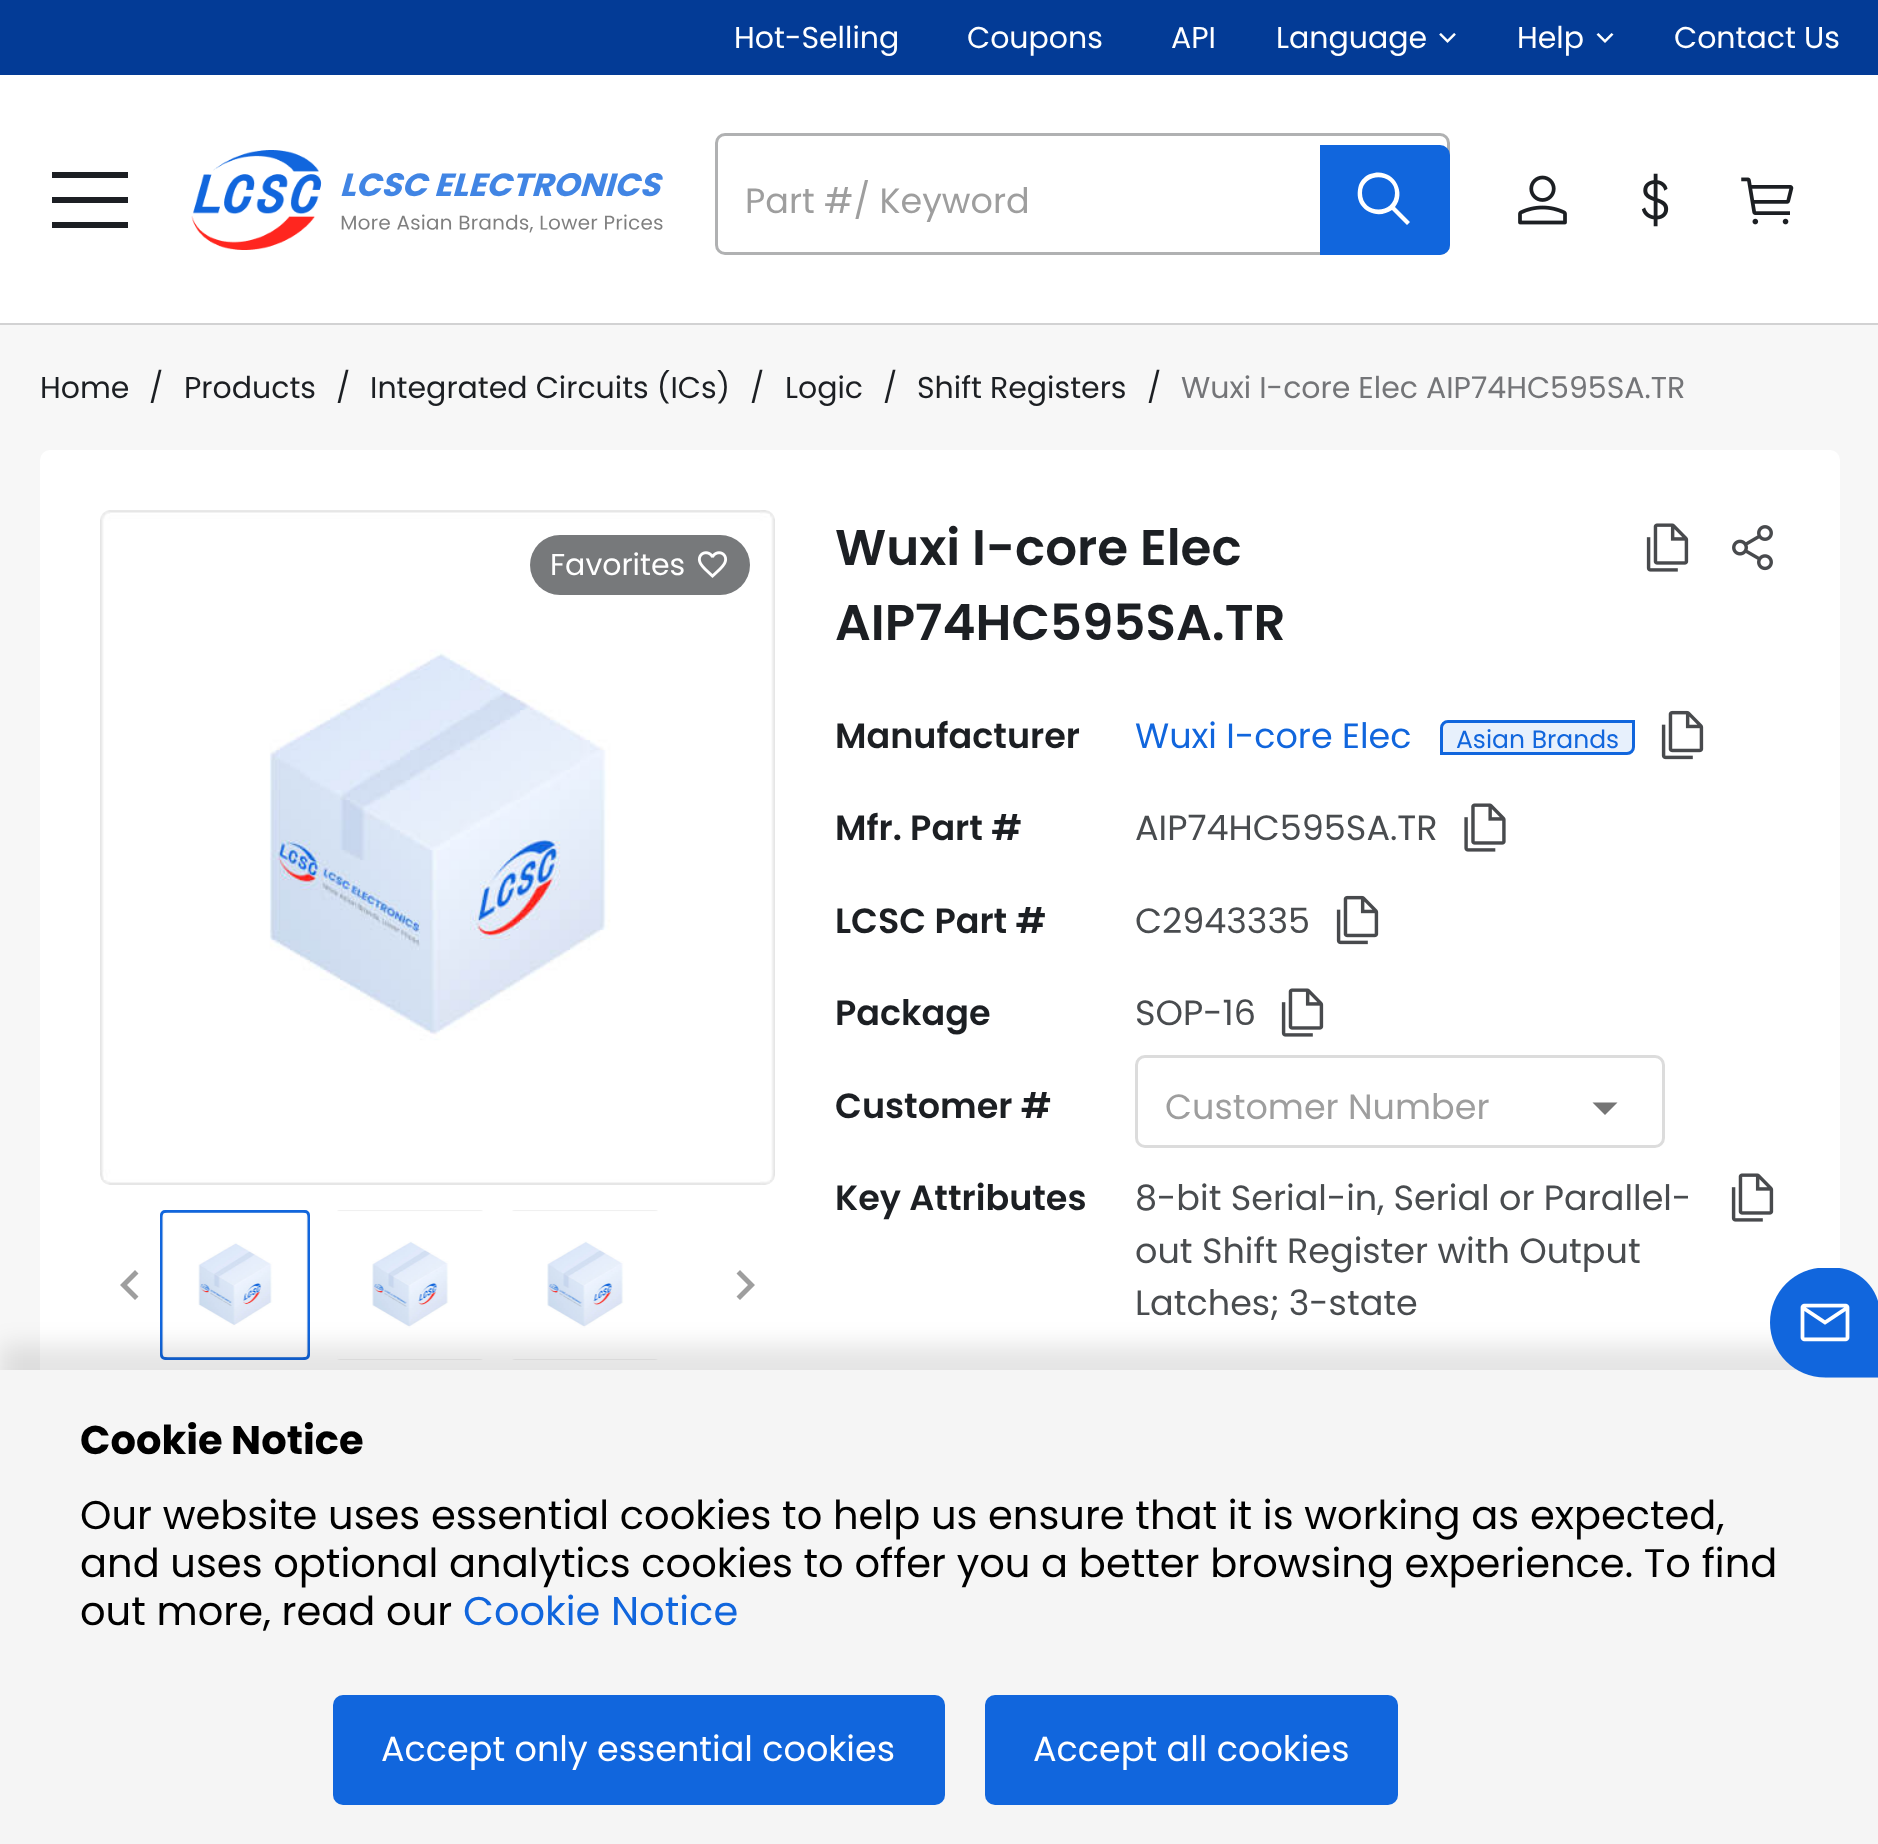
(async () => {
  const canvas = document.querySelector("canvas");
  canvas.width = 1878;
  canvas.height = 1844;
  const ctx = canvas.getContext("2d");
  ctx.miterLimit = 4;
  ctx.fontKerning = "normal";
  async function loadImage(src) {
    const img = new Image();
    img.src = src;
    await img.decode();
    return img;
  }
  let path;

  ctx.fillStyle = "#ffffff";
  ctx.fillRect(0, 0, 1878, 1844);
  ctx.fillStyle = "#033b96";
  ctx.fillRect(0, 0, 1878, 75);
  ctx.drawImage(await loadImage("img/1.png"), 1439, 33, 17, 10);
  ctx.fillStyle = "#ffffff";
  path = new Path2D("M1596.5 34.5L1598.5 33L1605 39.5L1611.5 33L1613.5 34.5L1605 43Z");
  ctx.fill(path);
  for (const [x, y, w, h, color] of [
    [0, 323, 1878, 2, "#d2d2d3"],
    [52, 172, 76, 6, "#1c1f23"],
    [52, 197, 76, 6, "#1c1f23"],
    [52, 222, 76, 6, "#1c1f23"],
  ]) {
    ctx.fillStyle = color;
    ctx.fillRect(x, y, w, h);
  }
  ctx.drawImage(await loadImage("img/2.png"), 191, 150, 131, 100);
  ctx.drawImage(await loadImage("img/3.png"), 341, 173, 322, 60);
  ctx.beginPath();
  ctx.roundRect(716.5, 134.5, 732, 119, 8.5);
  ctx.strokeStyle = "#b0b1b2";
  ctx.lineWidth = 3;
  ctx.stroke();
  ctx.fillStyle = "#1166dd";
  ctx.beginPath();
  ctx.roundRect(1320, 145, 130, 110, [0, 10, 10, 0]);
  ctx.fill();
  ctx.fillStyle = "#ffffff";
  path = new Path2D("M1392 210C1382 217 1368 215 1361 205C1357 199 1357 192 1359 185C1361 180 1365 176 1370 174C1391 166 1408 190 1395 207L1410 222L1407 225ZM1395 193C1395 172 1362 172 1362 193C1362 215 1395 215 1395 193Z");
  ctx.fill(path);
  ctx.drawImage(await loadImage("img/4.png"), 1518, 175, 49, 50);
  ctx.drawImage(await loadImage("img/5.png"), 1641, 173, 28, 54);
  ctx.drawImage(await loadImage("img/6.png"), 1741, 177, 53, 48);
  ctx.fillStyle = "#f7f7f7";
  ctx.fillRect(0, 325, 1878, 1045);
  ctx.fillStyle = "#ffffff";
  ctx.beginPath();
  ctx.roundRect(40, 450, 1800, 1258, 10);
  ctx.fill();
  ctx.drawImage(await loadImage("img/7.png"), 100, 510, 675, 675);
  ctx.fillStyle = "#77797b";
  ctx.beginPath();
  ctx.roundRect(530, 535, 220, 60, 30);
  ctx.fill();
  ctx.drawImage(await loadImage("img/8.png"), 697, 551, 31, 27);
  ctx.fillStyle = "#9e9e9e";
  path = new Path2D("M138.5 1296.5L127 1285L138.5 1273.5L135 1270L120 1285L135 1300Z");
  ctx.fill(path);
  ctx.beginPath();
  ctx.roundRect(161.5, 1211.5, 147, 147, 3.5);
  ctx.strokeStyle = "#1166dd";
  ctx.stroke();
  ctx.drawImage(await loadImage("img/9.png"), 162, 1212, 146, 146);
  ctx.drawImage(await loadImage("img/10.png"), 337, 1210, 146, 150);
  ctx.drawImage(await loadImage("img/10.png"), 512, 1210, 146, 150);
  path = new Path2D("M736.5 1296.5L748 1285L736.5 1273.5L740 1270L755 1285L740 1300Z");
  ctx.fill(path);
  ctx.drawImage(await loadImage("img/11.png"), 1646, 523, 43, 49);
  ctx.drawImage(await loadImage("img/12.png"), 1732, 525, 41, 46);
  ctx.fillStyle = "#e7f0fc";
  ctx.beginPath();
  ctx.roundRect(1441.5, 721.5, 192, 32, [6.5, 0, 6.5, 0]);
  ctx.fill();
  ctx.stroke();
  ctx.drawImage(await loadImage("img/13.png"), 1661, 710, 43, 50);
  ctx.drawImage(await loadImage("img/14.png"), 1464, 803, 42, 49);
  ctx.drawImage(await loadImage("img/13.png"), 1336, 895, 43, 50);
  ctx.drawImage(await loadImage("img/11.png"), 1281, 988, 43, 49);
  ctx.beginPath();
  ctx.roundRect(1136.5, 1056.5, 527, 90, 8.5);
  ctx.strokeStyle = "#dcdcdc";
  ctx.stroke();
  ctx.fillStyle = "#757575";
  path = new Path2D("M1592.5 1102.5L1605 1115L1617.5 1102.5Z");
  ctx.fill(path);
  ctx.drawImage(await loadImage("img/11.png"), 1731, 1173, 43, 49);
  ctx.fillStyle = "rgba(0, 0, 0, 0.1)";
  ctx.filter = "blur(12.5px)";
  ctx.beginPath();
  ctx.rect(0, 1345, 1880, 475);
  ctx.fill();
  ctx.filter = "none";
  ctx.fillStyle = "#f5f5f5";
  ctx.fillRect(0, 1370, 1878, 474);
  ctx.drawImage(await loadImage("img/15.png"), 1770, 1268, 108, 110);
  ctx.fillStyle = "#1166dd";
  ctx.beginPath();
  ctx.roundRect(333, 1695, 612, 110, 10);
  ctx.fill();
  ctx.beginPath();
  ctx.roundRect(985, 1695, 413, 110, 10);
  ctx.fill();
  ctx.font = "30px Poppins";
  ctx.fillStyle = "#ffffff";
  for (const [text, x, y] of [
    ["Hot-Selling", 734, 48],
    ["Coupons", 967, 48],
    ["API", 1171, 48],
    ["Language", 1276, 48],
    ["Help", 1517, 48],
    ["Contact Us", 1674, 48],
  ]) {
    ctx.fillText(text, x, y);
  }
  ctx.font = "35px Poppins";
  ctx.fillStyle = "#9e9e9e";
  ctx.fillText("Part #/ Keyword", 745, 213);
  ctx.font = "30px Poppins";
  ctx.fillStyle = "#1c1f23";
  for (const [text, x, y] of [
    ["Home", 40, 398],
    ["/", 149, 398],
    ["Products", 184, 398],
    ["/", 336, 398],
    ["Integrated Circuits (ICs)", 370, 398],
    ["/", 750, 398],
    ["Logic", 785, 398],
    ["/", 883, 398],
    ["Shift Registers", 917, 398],
    ["/", 1147, 398],
  ]) {
    ctx.fillText(text, x, y);
  }
  ctx.fillStyle = "#747578";
  ctx.fillText("Wuxi I-core Elec AIP74HC595SA.TR", 1181, 398);
  ctx.fillStyle = "#ffffff";
  ctx.fillText("Favorites", 550, 575);
  ctx.font = "600 50px Poppins";
  ctx.fillStyle = "#1c1f23";
  ctx.fillText("Wuxi I-core Elec", 835, 565);
  ctx.fillText("AIP74HC595SA.TR", 835, 640);
  ctx.font = "600 35px Poppins";
  ctx.fillText("Manufacturer", 835, 748);
  ctx.font = "35px Poppins";
  ctx.fillStyle = "#1166dd";
  ctx.fillText("Wuxi I-core Elec", 1135, 748);
  ctx.font = "25px Poppins";
  ctx.fillText("Asian Brands", 1456, 748);
  ctx.font = "600 35px Poppins";
  ctx.fillStyle = "#1c1f23";
  ctx.fillText("Mfr. Part #", 835, 840);
  ctx.font = "35px Poppins";
  ctx.fillStyle = "#494c4f";
  ctx.fillText("AIP74HC595SA.TR", 1135, 840);
  ctx.font = "600 35px Poppins";
  ctx.fillStyle = "#1c1f23";
  ctx.fillText("LCSC Part #", 835, 933);
  ctx.font = "35px Poppins";
  ctx.fillStyle = "#494c4f";
  ctx.fillText("C2943335", 1135, 933);
  ctx.font = "600 35px Poppins";
  ctx.fillStyle = "#1c1f23";
  ctx.fillText("Package", 835, 1025);
  ctx.font = "35px Poppins";
  ctx.fillStyle = "#494c4f";
  ctx.fillText("SOP-16", 1135, 1025);
  ctx.font = "600 35px Poppins";
  ctx.fillStyle = "#1c1f23";
  ctx.fillText("Customer #", 835, 1118);
  ctx.font = "35px Poppins";
  ctx.fillStyle = "#9e9e9e";
  ctx.fillText("Customer Number", 1165, 1119);
  ctx.font = "600 35px Poppins";
  ctx.fillStyle = "#1c1f23";
  ctx.fillText("Key Attributes", 835, 1210);
  ctx.font = "35px Poppins";
  ctx.fillStyle = "#494c4f";
  for (const [text, x, y] of [
    ["8-bit Serial-in, Serial or Parallel-", 1135, 1210],
    ["out Shift Register with Output", 1135, 1263],
    ["Latches; 3-state", 1135, 1315],
  ]) {
    ctx.fillText(text, x, y);
  }
  ctx.font = "bold 40px Poppins";
  ctx.fillStyle = "#000000";
  ctx.fillText("Cookie Notice", 80, 1454);
  ctx.font = "40px Poppins";
  for (const [text, x, y] of [
    ["Our website uses essential cookies to help us ensure that it is working as expected,", 80, 1529],
    ["and uses optional analytics cookies to offer you a better browsing experience. To find", 80, 1577],
    ["out more, read our", 80, 1625],
  ]) {
    ctx.fillText(text, x, y);
  }
  ctx.fillStyle = "#1166dd";
  ctx.fillText("Cookie Notice", 463, 1625);
  ctx.font = "35px Poppins";
  ctx.fillStyle = "#ffffff";
  ctx.fillText("Accept only essential cookies", 381, 1761);
  ctx.fillText("Accept all cookies", 1033, 1761);
})();
